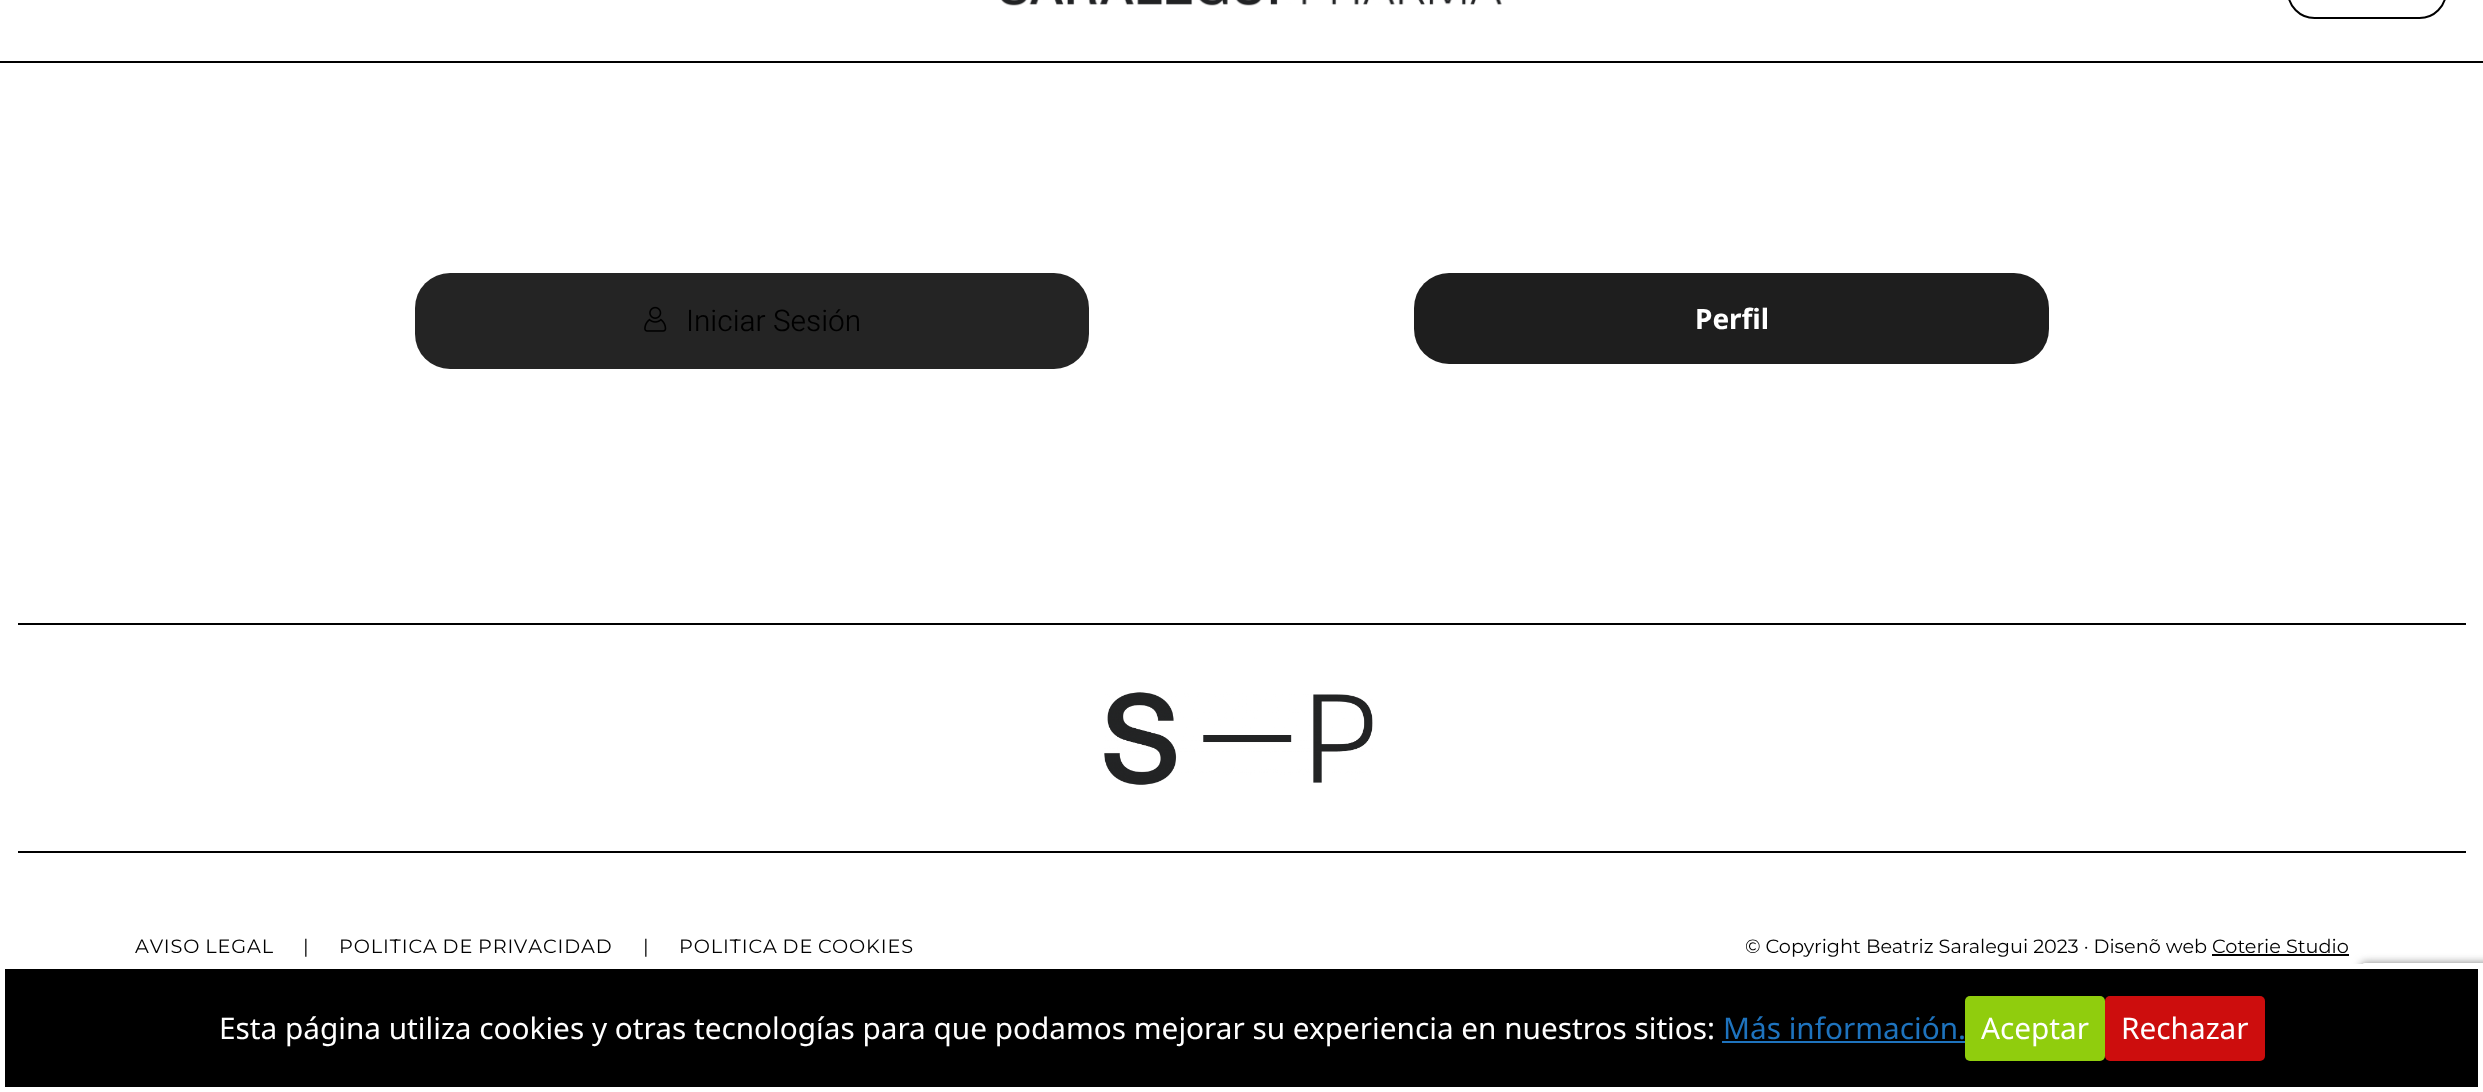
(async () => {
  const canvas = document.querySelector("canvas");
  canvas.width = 2483;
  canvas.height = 1092;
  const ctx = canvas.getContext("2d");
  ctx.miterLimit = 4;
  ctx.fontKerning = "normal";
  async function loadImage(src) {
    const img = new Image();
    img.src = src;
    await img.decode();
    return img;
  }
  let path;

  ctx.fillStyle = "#ffffff";
  ctx.fillRect(0, 0, 2483, 1092);
  ctx.fillStyle = "#000000";
  ctx.fillRect(0, 61, 2483, 2);
  ctx.drawImage(await loadImage("img/1.png"), 1001, 0, 501, 6);
  ctx.beginPath();
  ctx.roundRect(2288, -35, 158, 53, 33);
  ctx.strokeStyle = "#000000";
  ctx.lineWidth = 2;
  ctx.stroke();
  ctx.fillStyle = "#242424";
  ctx.beginPath();
  ctx.roundRect(415, 273, 674, 96, 35);
  ctx.fill();
  ctx.drawImage(await loadImage("img/2.png"), 644, 306, 23, 26);
  ctx.fillStyle = "#1e1e1e";
  ctx.beginPath();
  ctx.roundRect(1414, 273, 635, 91, 35);
  ctx.fill();
  ctx.fillStyle = "#000000";
  ctx.fillRect(18, 623, 2448, 2);
  ctx.drawImage(await loadImage("img/3.png"), 1104, 692, 269, 93);
  ctx.fillRect(18, 851, 2448, 2);
  ctx.fillRect(2212, 954, 137, 2);
  ctx.save();
  path = new Path2D("M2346 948H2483V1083H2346ZM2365 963H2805C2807 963 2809 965 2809 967V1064C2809 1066 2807 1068 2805 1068H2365C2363 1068 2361 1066 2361 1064V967C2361 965 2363 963 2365 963Z");
  ctx.clip(path, "evenodd");
  ctx.fillStyle = "#808080";
  ctx.filter = "blur(4.5px)";
  ctx.beginPath();
  ctx.roundRect(2361, 963, 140, 105, 4);
  ctx.fill();
  ctx.filter = "none";
  ctx.restore();
  ctx.beginPath();
  ctx.roundRect(2.5, 966.5, 2478, 123, 2.5);
  ctx.fill();
  ctx.strokeStyle = "#ffffff";
  ctx.lineWidth = 5;
  ctx.stroke();
  ctx.fillStyle = "#1e73be";
  ctx.fillRect(1722, 1041, 243, 2);
  ctx.fillStyle = "#90cd0d";
  ctx.beginPath();
  ctx.roundRect(1965, 996, 140, 65, 5);
  ctx.fill();
  ctx.fillStyle = "#cd0d0d";
  ctx.beginPath();
  ctx.roundRect(2105, 996, 160, 65, 5);
  ctx.fill();
  ctx.font = "300 29.75px Heebo";
  ctx.fillStyle = "#000000";
  ctx.fillText("Iniciar Sesión", 686, 331);
  ctx.font = "bold 28px Noto Sans";
  ctx.fillStyle = "#ffffff";
  ctx.fillText("Perfil", 1695, 329);
  ctx.letterSpacing = "0.9px";
  ctx.wordSpacing = "-1px";
  ctx.font = "19.25px Montserrat";
  ctx.fillStyle = "#000000";
  ctx.fillText("AVISO LEGAL", 135, 953);
  ctx.wordSpacing = "0px";
  ctx.fillText("|", 303, 953);
  ctx.wordSpacing = "-1px";
  ctx.fillText("POLÍTICA DE PRIVACIDAD", 339, 953);
  ctx.wordSpacing = "0px";
  ctx.fillText("|", 643, 953);
  ctx.wordSpacing = "-1px";
  ctx.fillText("POLÍTICA DE COOKIES", 679, 953);
  ctx.letterSpacing = "0px";
  ctx.wordSpacing = "0px";
  ctx.fillText("© Copyright Beatriz Saralegui 2023 · Diseño web Coterie Studio", 1745, 953);
  ctx.font = "29.75px Noto Sans";
  ctx.fillStyle = "#ffffff";
  ctx.fillText("Esta página utiliza cookies y otras tecnologías para que podamos mejorar su experiencia en nuestros sitios:", 219, 1039);
  ctx.fillStyle = "#1e73be";
  ctx.fillText("Más información.", 1723, 1039);
  ctx.fillStyle = "#ffffff";
  ctx.fillText("Aceptar", 1981, 1039);
  ctx.fillText("Rechazar", 2121, 1039);
})();
